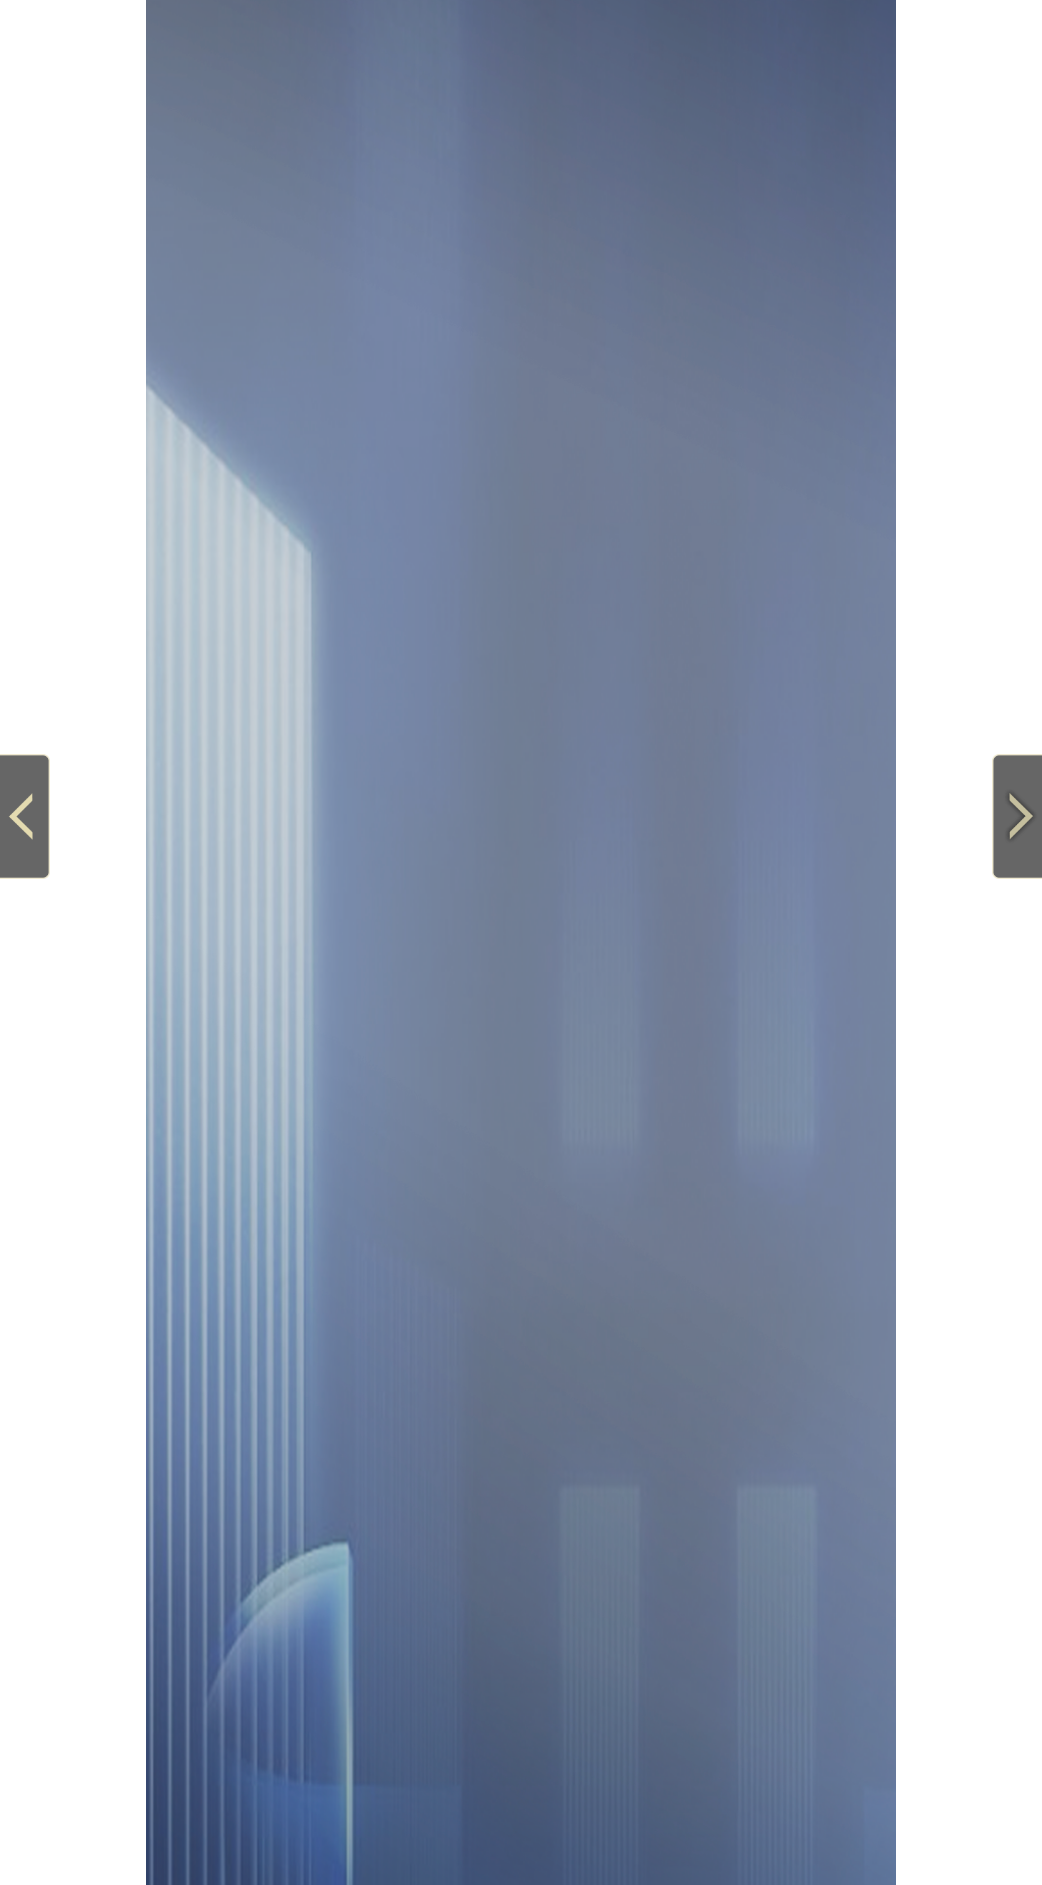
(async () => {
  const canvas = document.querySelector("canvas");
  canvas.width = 1042;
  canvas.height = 1885;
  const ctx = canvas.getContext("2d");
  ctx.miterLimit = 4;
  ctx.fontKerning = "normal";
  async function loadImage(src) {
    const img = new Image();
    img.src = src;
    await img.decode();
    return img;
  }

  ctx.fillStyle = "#ffffff";
  ctx.fillRect(0, 0, 1042, 1885);
  ctx.drawImage(await loadImage("img/1.png"), 146, 0, 750, 1885);
  ctx.drawImage(await loadImage("img/2.png"), 0, 754, 50, 125);
  ctx.drawImage(await loadImage("img/3.png"), 992, 754, 50, 125);
})();
